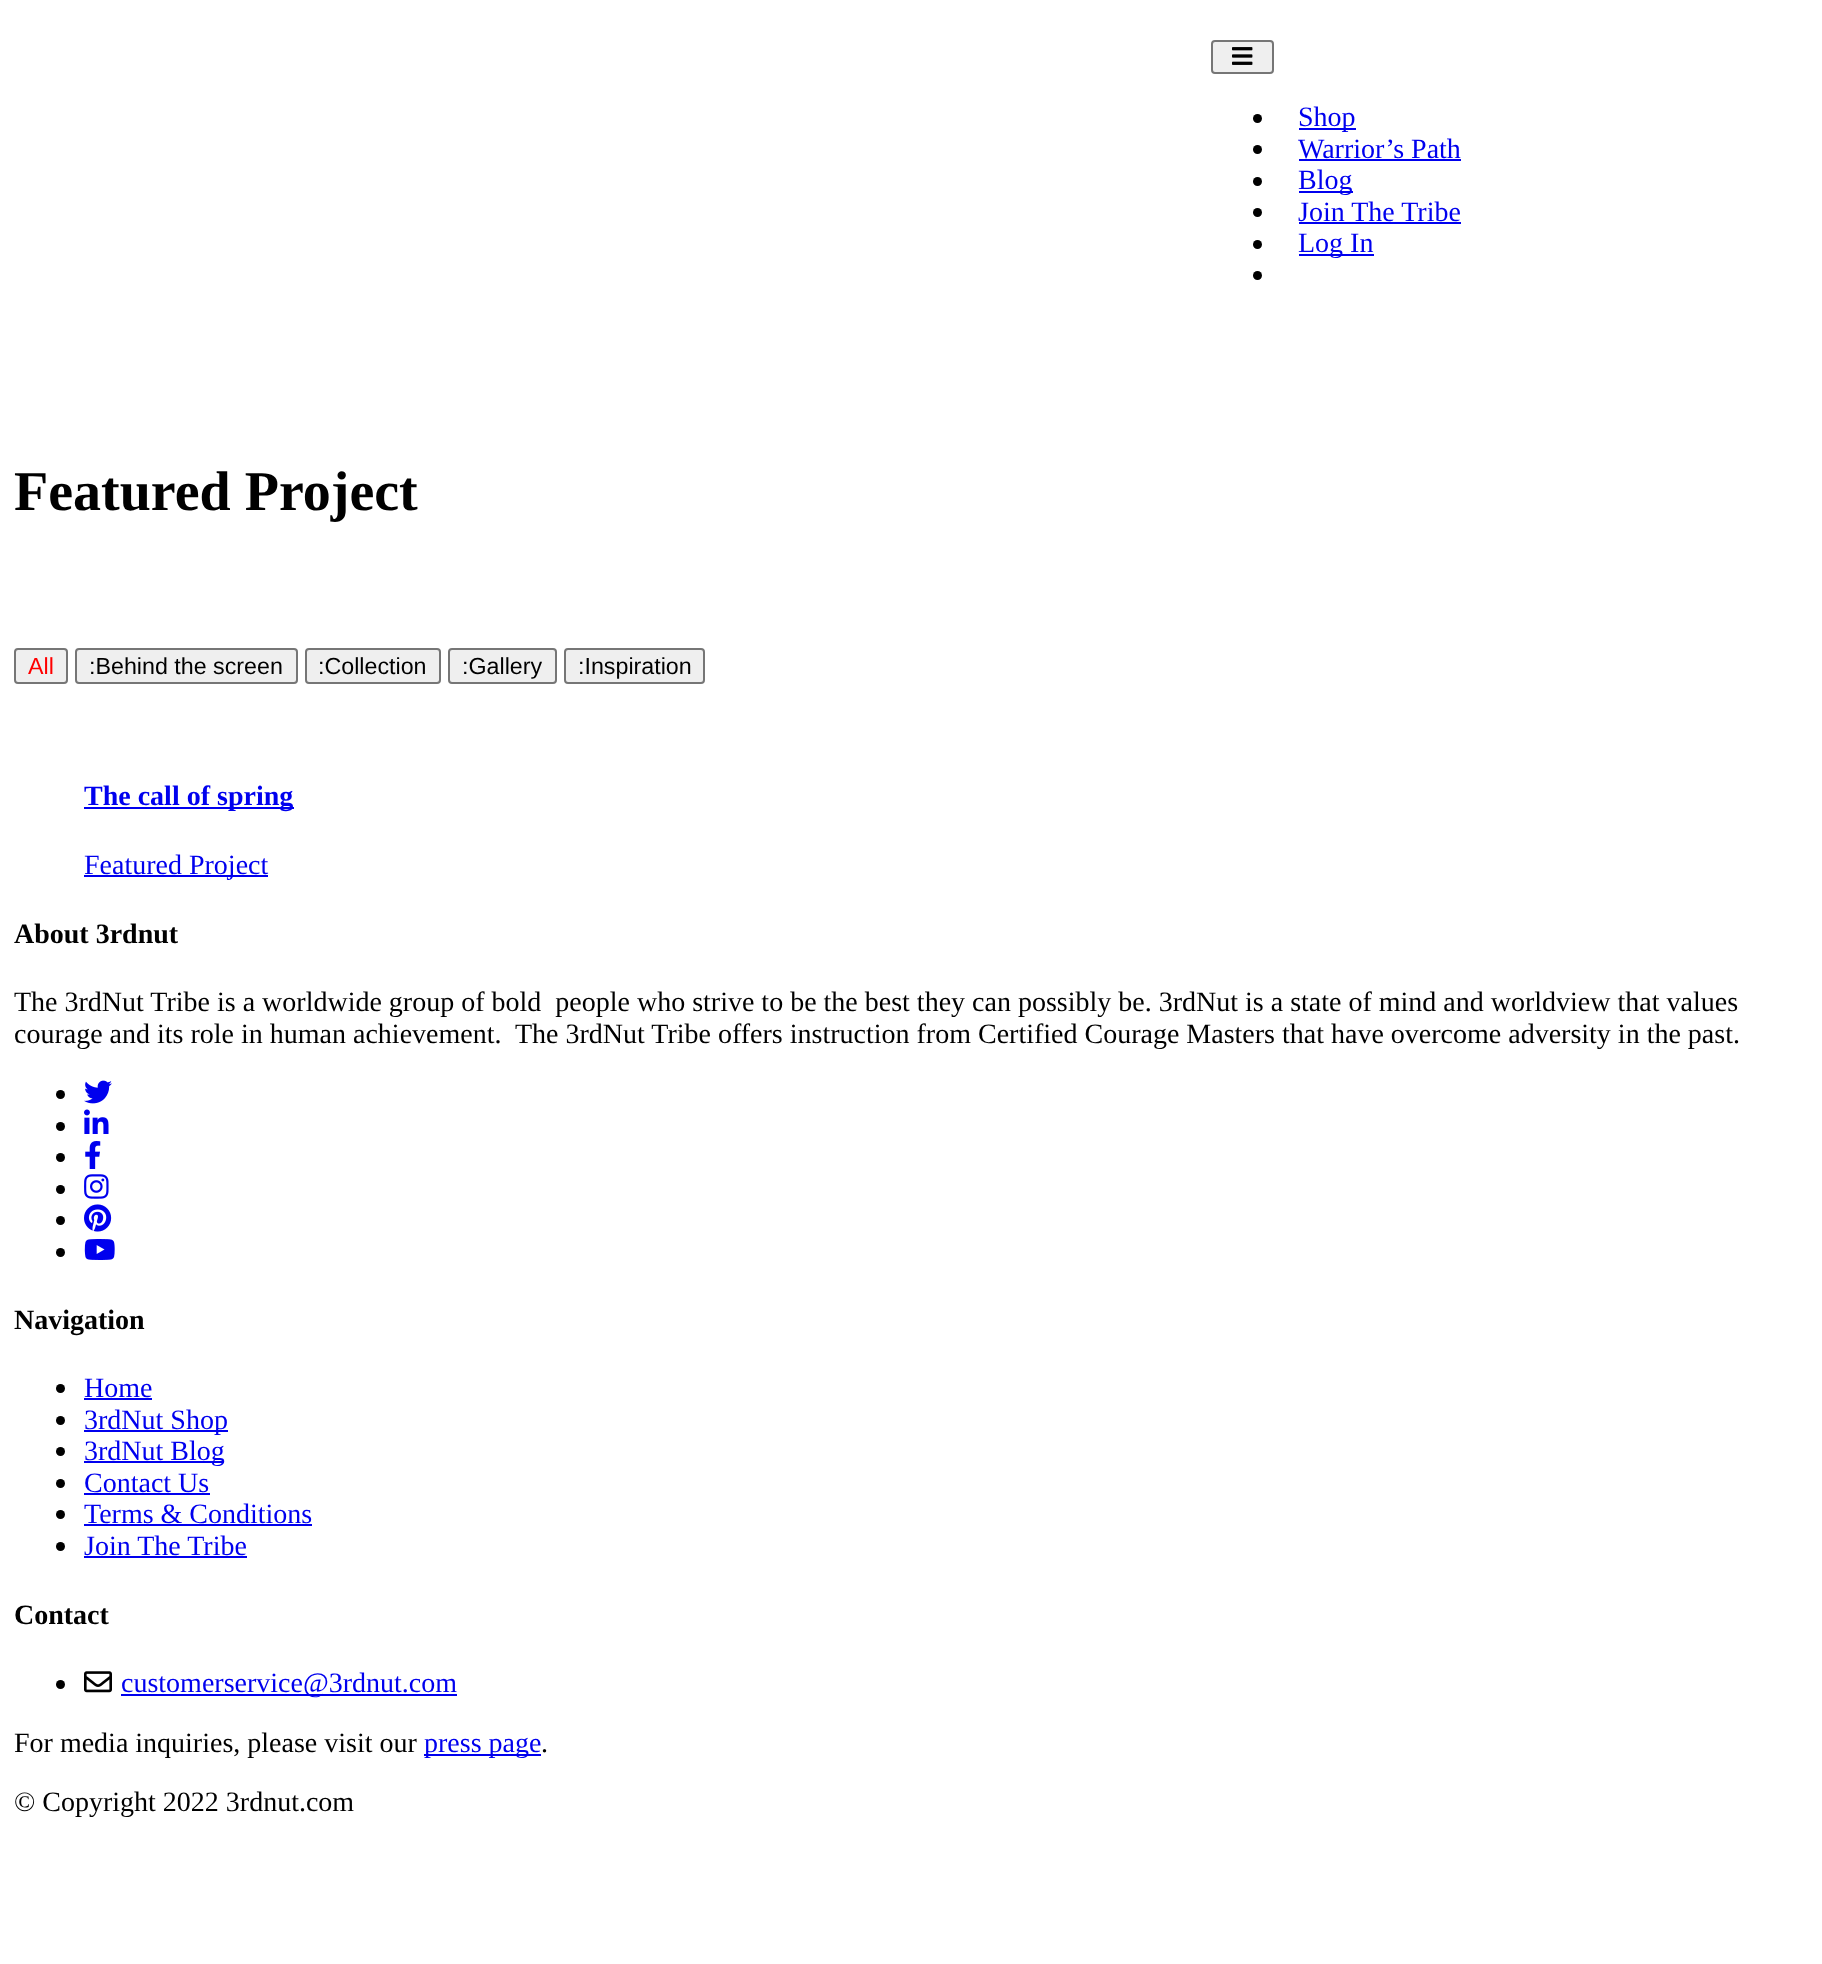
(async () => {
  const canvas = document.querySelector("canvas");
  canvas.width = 1822;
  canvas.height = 1964;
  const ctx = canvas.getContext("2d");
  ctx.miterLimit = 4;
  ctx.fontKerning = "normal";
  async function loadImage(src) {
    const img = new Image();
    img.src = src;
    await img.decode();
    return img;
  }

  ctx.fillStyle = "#ffffff";
  ctx.fillRect(0, 0, 1822, 1964);
  ctx.fillStyle = "#efefef";
  ctx.beginPath();
  ctx.roundRect(1212, 41, 61, 32, 3);
  ctx.fill();
  ctx.strokeStyle = "#767676";
  ctx.lineWidth = 2;
  ctx.stroke();
  ctx.drawImage(await loadImage("img/1.png"), 1232, 47, 21, 18);
  ctx.fillStyle = "#000000";
  ctx.beginPath();
  ctx.arc(1257.5, 118.5, 4.5, 0, Math.PI * 2);
  ctx.fill();
  ctx.fillStyle = "#0000ee";
  ctx.fillRect(1299, 128, 57, 2);
  ctx.fillStyle = "#000000";
  ctx.beginPath();
  ctx.arc(1257.5, 149.5, 4.5, 0, Math.PI * 2);
  ctx.fill();
  ctx.fillStyle = "#0000ee";
  ctx.fillRect(1299, 159, 162, 2);
  ctx.fillStyle = "#000000";
  ctx.beginPath();
  ctx.arc(1257.5, 181.5, 4.5, 0, Math.PI * 2);
  ctx.fill();
  ctx.fillStyle = "#0000ee";
  ctx.fillRect(1299, 191, 54, 2);
  ctx.fillStyle = "#000000";
  ctx.beginPath();
  ctx.arc(1257.5, 212.5, 4.5, 0, Math.PI * 2);
  ctx.fill();
  ctx.fillStyle = "#0000ee";
  ctx.fillRect(1299, 222, 162, 2);
  ctx.fillStyle = "#000000";
  ctx.beginPath();
  ctx.arc(1257.5, 244.5, 4.5, 0, Math.PI * 2);
  ctx.fill();
  ctx.fillStyle = "#0000ee";
  ctx.fillRect(1299, 254, 75, 2);
  ctx.fillStyle = "#000000";
  ctx.beginPath();
  ctx.arc(1257.5, 275.5, 4.5, 0, Math.PI * 2);
  ctx.fill();
  ctx.fillStyle = "#efefef";
  ctx.beginPath();
  ctx.roundRect(15, 649, 52, 34, 3);
  ctx.fill();
  ctx.stroke();
  ctx.beginPath();
  ctx.roundRect(76, 649, 221, 34, 3);
  ctx.fill();
  ctx.stroke();
  ctx.beginPath();
  ctx.roundRect(306, 649, 134, 34, 3);
  ctx.fill();
  ctx.stroke();
  ctx.beginPath();
  ctx.roundRect(449, 649, 107, 34, 3);
  ctx.fill();
  ctx.stroke();
  ctx.beginPath();
  ctx.roundRect(565, 649, 139, 34, 3);
  ctx.fill();
  ctx.stroke();
  ctx.fillStyle = "#0000ee";
  ctx.fillRect(84, 807, 210, 2);
  ctx.fillRect(84, 875, 184, 2);
  ctx.fillStyle = "#000000";
  ctx.beginPath();
  ctx.arc(60.5, 1094.5, 4.5, 0, Math.PI * 2);
  ctx.fill();
  ctx.drawImage(await loadImage("img/2.png"), 84, 1080, 28, 24);
  ctx.beginPath();
  ctx.arc(60.5, 1126.5, 4.5, 0, Math.PI * 2);
  ctx.fill();
  ctx.drawImage(await loadImage("img/3.png"), 84, 1109, 25, 25);
  ctx.beginPath();
  ctx.arc(60.5, 1157.5, 4.5, 0, Math.PI * 2);
  ctx.fill();
  ctx.drawImage(await loadImage("img/4.png"), 85, 1141, 16, 28);
  ctx.beginPath();
  ctx.arc(60.5, 1189.5, 4.5, 0, Math.PI * 2);
  ctx.fill();
  ctx.drawImage(await loadImage("img/5.png"), 84, 1174, 25, 25);
  ctx.beginPath();
  ctx.arc(60.5, 1220.5, 4.5, 0, Math.PI * 2);
  ctx.fill();
  ctx.drawImage(await loadImage("img/6.png"), 84, 1204, 28, 28);
  ctx.beginPath();
  ctx.arc(60.5, 1252.5, 4.5, 0, Math.PI * 2);
  ctx.fill();
  ctx.drawImage(await loadImage("img/7.png"), 84, 1239, 31, 21);
  ctx.beginPath();
  ctx.arc(60.5, 1388.5, 4.5, 0, Math.PI * 2);
  ctx.fill();
  ctx.fillStyle = "#0000ee";
  ctx.fillRect(84, 1398, 68, 2);
  ctx.fillStyle = "#000000";
  ctx.beginPath();
  ctx.arc(60.5, 1420.5, 4.5, 0, Math.PI * 2);
  ctx.fill();
  ctx.fillStyle = "#0000ee";
  ctx.fillRect(84, 1430, 144, 2);
  ctx.fillStyle = "#000000";
  ctx.beginPath();
  ctx.arc(60.5, 1451.5, 4.5, 0, Math.PI * 2);
  ctx.fill();
  ctx.fillStyle = "#0000ee";
  ctx.fillRect(84, 1461, 140, 2);
  ctx.fillStyle = "#000000";
  ctx.beginPath();
  ctx.arc(60.5, 1483.5, 4.5, 0, Math.PI * 2);
  ctx.fill();
  ctx.fillStyle = "#0000ee";
  ctx.fillRect(84, 1493, 126, 2);
  ctx.fillStyle = "#000000";
  ctx.beginPath();
  ctx.arc(60.5, 1514.5, 4.5, 0, Math.PI * 2);
  ctx.fill();
  ctx.fillStyle = "#0000ee";
  ctx.fillRect(84, 1524, 228, 2);
  ctx.fillStyle = "#000000";
  ctx.beginPath();
  ctx.arc(60.5, 1546.5, 4.5, 0, Math.PI * 2);
  ctx.fill();
  ctx.fillStyle = "#0000ee";
  ctx.fillRect(84, 1556, 163, 2);
  ctx.fillStyle = "#000000";
  ctx.beginPath();
  ctx.arc(60.5, 1684.5, 4.5, 0, Math.PI * 2);
  ctx.fill();
  ctx.drawImage(await loadImage("img/8.png"), 84, 1671, 28, 22);
  ctx.fillStyle = "#0000ee";
  ctx.fillRect(121, 1694, 336, 2);
  ctx.fillRect(424, 1754, 117, 2);
  ctx.font = "28px Liberation Serif";
  for (const [text, x, y] of [
    ["Shop", 1298, 126],
    ["Warrior’s Path", 1298, 158],
    ["Blog", 1298, 189],
    ["Join The Tribe", 1298, 221],
    ["Log In", 1298, 252],
  ]) {
    ctx.fillText(text, x, y);
  }
  ctx.font = "bold 56px Liberation Serif";
  ctx.fillStyle = "#000000";
  ctx.fillText("Featured Project", 14, 510);
  ctx.font = "23.25px Liberation Sans";
  ctx.fillStyle = "#ff0000";
  ctx.fillText("All", 28, 674);
  ctx.fillStyle = "#000000";
  for (const [text, x, y] of [
    [":Behind the screen", 89, 674],
    [":Collection", 318, 674],
    [":Gallery", 462, 674],
    [":Inspiration", 578, 674],
  ]) {
    ctx.fillText(text, x, y);
  }
  ctx.font = "bold 28px Liberation Serif";
  ctx.fillStyle = "#0000ee";
  ctx.fillText("The call of spring", 84, 805);
  ctx.font = "28px Liberation Serif";
  ctx.fillText("Featured Project", 84, 874);
  ctx.font = "bold 28px Liberation Serif";
  ctx.fillStyle = "#000000";
  ctx.fillText("About 3rdnut", 14, 943);
  ctx.font = "28px Liberation Serif";
  ctx.fillText("The 3rdNut Tribe is a worldwide group of bold  people who strive to be the best they can possibly be. 3rdNut is a state of mind and worldview that values", 14, 1011);
  ctx.fillText("courage and its role in human achievement.  The 3rdNut Tribe offers instruction from Certified Courage Masters that have overcome adversity in the past.", 14, 1043);
  ctx.font = "bold 28px Liberation Serif";
  ctx.fillText("Navigation", 14, 1329);
  ctx.font = "28px Liberation Serif";
  ctx.fillStyle = "#0000ee";
  for (const [text, x, y] of [
    ["Home", 84, 1397],
    ["3rdNut Shop", 84, 1429],
    ["3rdNut Blog", 84, 1460],
    ["Contact Us", 84, 1492],
    ["Terms & Conditions", 84, 1523],
    ["Join The Tribe", 84, 1555],
  ]) {
    ctx.fillText(text, x, y);
  }
  ctx.font = "bold 28px Liberation Serif";
  ctx.fillStyle = "#000000";
  ctx.fillText("Contact", 14, 1624);
  ctx.font = "28px Liberation Serif";
  ctx.fillStyle = "#0000ee";
  ctx.fillText("customerservice@3rdnut.com", 121, 1692);
  ctx.fillStyle = "#000000";
  ctx.fillText("For media inquiries, please visit our", 14, 1752);
  ctx.fillStyle = "#0000ee";
  ctx.fillText("press page", 424, 1752);
  ctx.fillStyle = "#000000";
  ctx.fillText(".", 541, 1752);
  ctx.fillText("© Copyright 2022 3rdnut.com", 14, 1811);
})();
